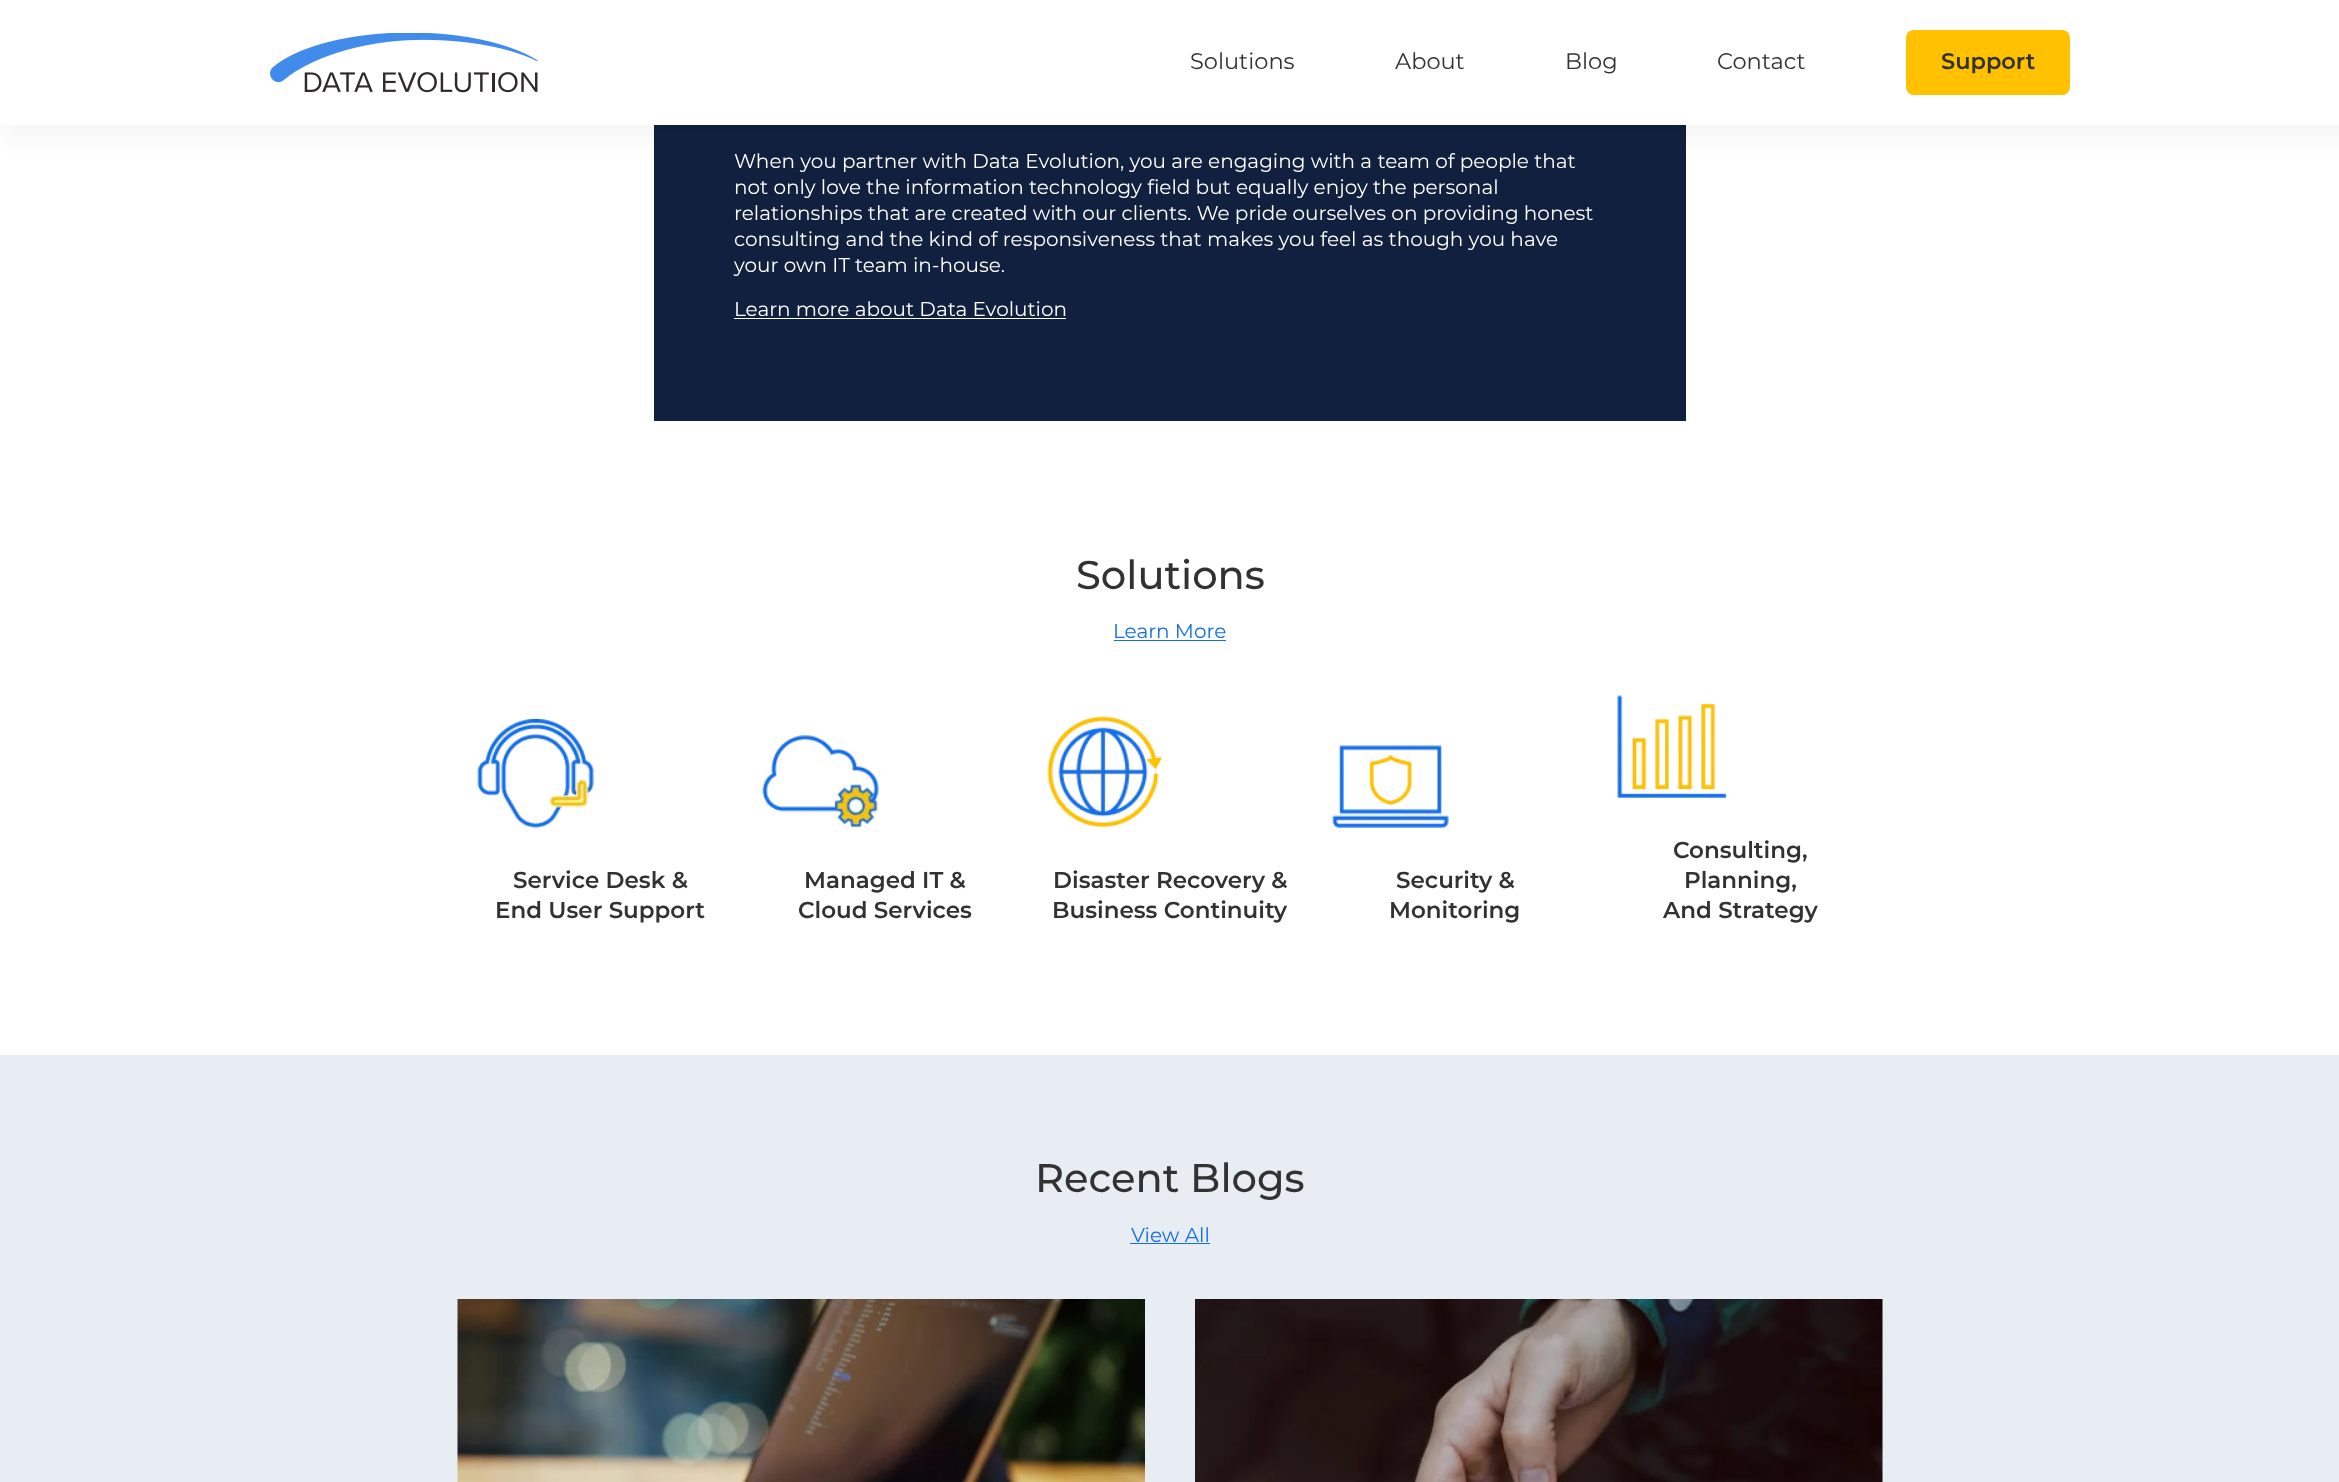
(async () => {
  const canvas = document.querySelector("canvas");
  canvas.width = 2339;
  canvas.height = 1482;
  const ctx = canvas.getContext("2d");
  ctx.miterLimit = 4;
  ctx.fontKerning = "normal";
  async function loadImage(src) {
    const img = new Image();
    img.src = src;
    await img.decode();
    return img;
  }

  ctx.fillStyle = "#ffffff";
  ctx.fillRect(0, 0, 2339, 1482);
  ctx.fillStyle = "#11203f";
  ctx.fillRect(654, 125, 1032, 296);
  ctx.fillStyle = "rgba(0, 0, 0, 0.04)";
  ctx.filter = "blur(10px)";
  ctx.beginPath();
  ctx.rect(5, 5, 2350, 135);
  ctx.fill();
  ctx.filter = "none";
  ctx.fillStyle = "#ffffff";
  ctx.fillRect(0, 0, 2339, 125);
  ctx.drawImage(await loadImage("img/1.png"), 270, 33, 268, 60);
  ctx.fillStyle = "#ffc100";
  ctx.beginPath();
  ctx.roundRect(1906, 30, 164, 65, 8);
  ctx.fill();
  ctx.fillStyle = "#ffffff";
  ctx.fillRect(734, 318, 332, 1);
  ctx.fillStyle = "#146fe6";
  ctx.fillRect(1114, 640, 112, 1);
  ctx.drawImage(await loadImage("img/2.png"), 477, 719, 117, 109);
  ctx.drawImage(await loadImage("img/3.png"), 762, 735, 117, 93);
  ctx.drawImage(await loadImage("img/4.png"), 1047, 716, 116, 112);
  ctx.drawImage(await loadImage("img/5.png"), 1332, 745, 117, 83);
  ctx.drawImage(await loadImage("img/6.png"), 1617, 695, 110, 103);
  ctx.fillStyle = "#e7edf2";
  ctx.fillRect(0, 1055, 2339, 427);
  ctx.fillStyle = "#146fe6";
  ctx.fillRect(1130, 1243, 80, 1);
  ctx.drawImage(await loadImage("img/7.png"), 457, 1299, 688, 183);
  ctx.drawImage(await loadImage("img/8.png"), 1195, 1299, 688, 183);
  ctx.font = "22.5px Montserrat";
  ctx.fillStyle = "#323232";
  for (const [text, x, y] of [
    ["Solutions", 1190, 69],
    ["About", 1395, 69],
    ["Blog", 1565, 69],
    ["Contact", 1717, 69],
  ]) {
    ctx.fillText(text, x, y);
  }
  ctx.font = "600 22.5px Montserrat";
  ctx.fillText("Support", 1941, 69);
  ctx.font = "20px Montserrat";
  ctx.fillStyle = "#ffffff";
  for (const [text, x, y] of [
    ["When you partner with Data Evolution, you are engaging with a team of people that", 734, 168],
    ["not only love the information technology field but equally enjoy the personal", 734, 194],
    ["relationships that are created with our clients. We pride ourselves on providing honest", 734, 220],
    ["consulting and the kind of responsiveness that makes you feel as though you have", 734, 246],
    ["your own IT team in-house.", 734, 272],
    ["Learn more about Data Evolution", 734, 316],
  ]) {
    ctx.fillText(text, x, y);
  }
  ctx.font = "500 40px Montserrat";
  ctx.fillStyle = "#323232";
  ctx.fillText("Solutions", 1076, 589);
  ctx.font = "20px Montserrat";
  ctx.fillStyle = "#146fe6";
  ctx.fillText("Learn More", 1113, 638);
  ctx.font = "600 23px Montserrat";
  ctx.fillStyle = "#323232";
  for (const [text, x, y] of [
    ["Service Desk &", 513, 888],
    ["End User Support", 495, 918],
    ["Managed IT &", 804, 888],
    ["Cloud Services", 798, 918],
    ["Disaster Recovery &", 1053, 888],
    ["Business Continuity", 1052, 918],
    ["Security &", 1396, 888],
    ["Monitoring", 1389, 918],
    ["Consulting,", 1673, 858],
    ["Planning,", 1684, 888],
    ["And Strategy", 1663, 918],
  ]) {
    ctx.fillText(text, x, y);
  }
  ctx.font = "500 40px Montserrat";
  ctx.fillText("Recent Blogs", 1035, 1192);
  ctx.font = "20px Montserrat";
  ctx.fillStyle = "#146fe6";
  ctx.fillText("View All", 1131, 1242);
})();
